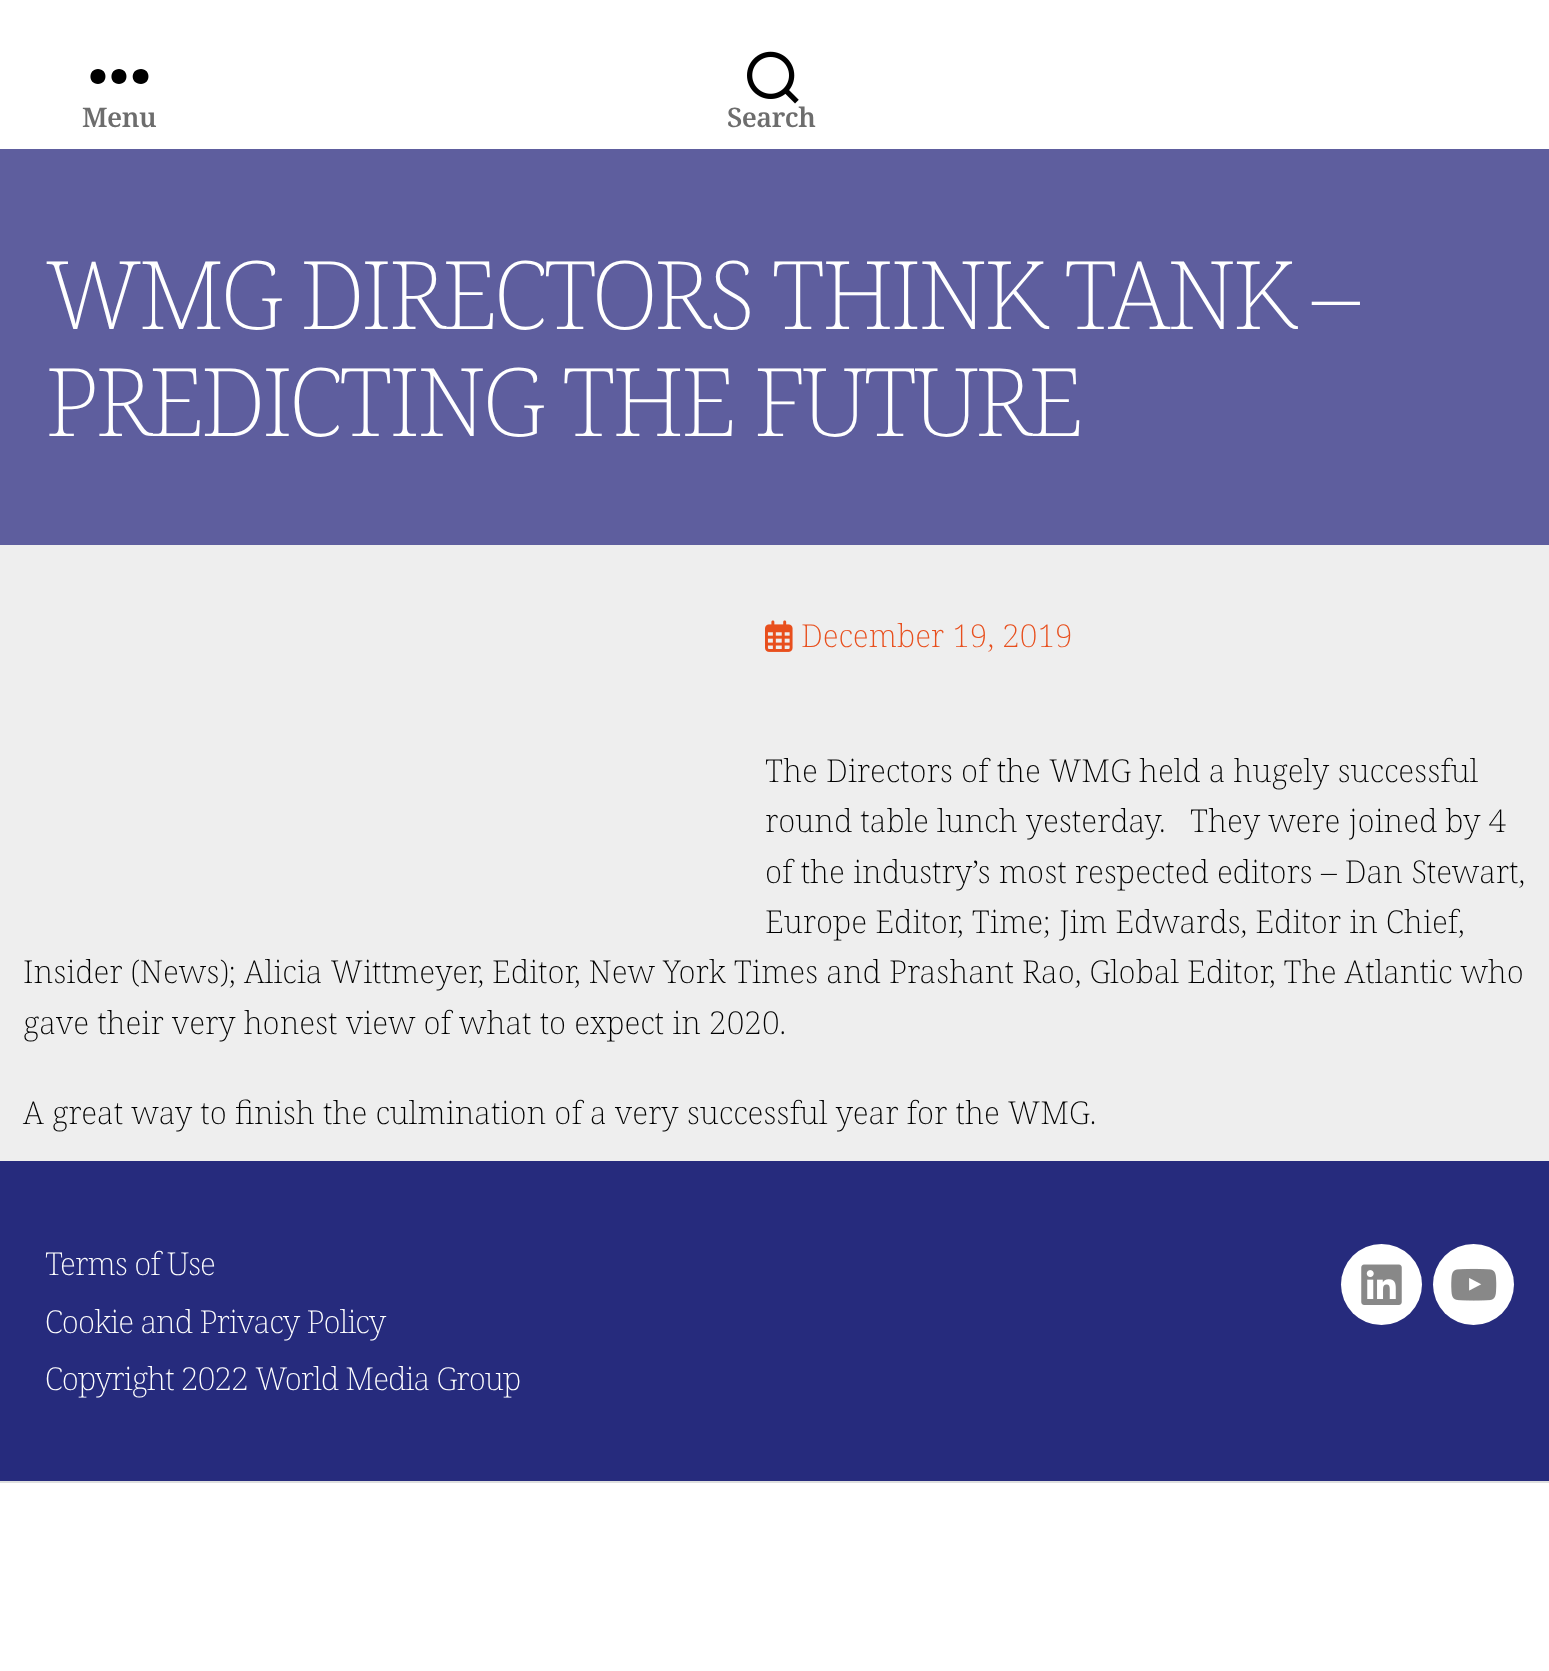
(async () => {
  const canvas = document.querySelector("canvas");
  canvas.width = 1549;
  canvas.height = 1671;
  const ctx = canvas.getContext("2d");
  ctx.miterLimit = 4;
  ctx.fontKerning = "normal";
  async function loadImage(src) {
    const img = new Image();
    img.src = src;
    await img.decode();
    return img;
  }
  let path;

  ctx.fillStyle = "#ffffff";
  ctx.fillRect(0, 0, 1549, 1671);
  ctx.fillStyle = "#000000";
  path = new Path2D("M98 84C88 84 88 69 98 69C108 69 108 84 98 84ZM119 84C109 84 109 69 119 69C129 69 129 84 119 84ZM141 84C130 84 130 69 141 69C151 69 151 84 141 84Z");
  ctx.fill(path, "evenodd");
  ctx.drawImage(await loadImage("img/1.png"), 747, 51, 52, 53);
  ctx.fillStyle = "#eeeeee";
  ctx.fillRect(0, 545, 1549, 616);
  ctx.fillStyle = "#5e5e9e";
  ctx.fillRect(0, 149, 1549, 396);
  ctx.drawImage(await loadImage("img/2.png"), 765, 620, 28, 32);
  ctx.fillStyle = "#262b7d";
  ctx.fillRect(0, 1161, 1549, 320);
  ctx.fillStyle = "#dedfdf";
  ctx.fillRect(0, 1481, 1549, 2);
  ctx.fillStyle = "#ffffff";
  ctx.beginPath();
  ctx.arc(1381.5, 1284.5, 40.5, 0, Math.PI * 2);
  ctx.fill();
  ctx.drawImage(await loadImage("img/3.png"), 1361, 1264, 41, 41);
  ctx.beginPath();
  ctx.arc(1473.5, 1284.5, 40.5, 0, Math.PI * 2);
  ctx.fill();
  ctx.drawImage(await loadImage("img/4.png"), 1451, 1268, 46, 33);
  ctx.letterSpacing = "-0.5px";
  ctx.font = "600 27px Noto Serif";
  ctx.fillStyle = "#6d6d6d";
  ctx.fillText("Menu", 82, 127);
  ctx.fillText("Search", 727, 127);
  ctx.letterSpacing = "-3.9px";
  ctx.font = "200 94.5px Noto Serif";
  ctx.fillStyle = "#ffffff";
  ctx.fillText("WMG DIRECTORS THINK TANK –", 45, 329);
  ctx.fillText("PREDICTING THE FUTURE", 45, 436);
  ctx.letterSpacing = "0px";
  ctx.font = "200 31.5px Noto Serif";
  ctx.fillStyle = "#e84f1d";
  ctx.fillText("December 19, 2019", 801, 647);
  ctx.fillStyle = "#000000";
  for (const [text, x, y] of [
    ["The Directors of the WMG held a hugely successful", 765, 782],
    ["round table lunch yesterday.   They were joined by 4", 765, 832],
    ["of the industry’s most respected editors – Dan Stewart,", 765, 883],
    ["Europe Editor, Time; Jim Edwards, Editor in Chief,", 765, 933],
    ["Insider (News); Alicia Wittmeyer, Editor, New York Times and Prashant Rao, Global Editor, The Atlantic who", 23, 983],
    ["gave their very honest view of what to expect in 2020.", 23, 1034],
    ["A great way to finish the culmination of a very successful year for the WMG.", 23, 1124],
  ]) {
    ctx.fillText(text, x, y);
  }
  ctx.letterSpacing = "-0.9px";
  ctx.fillStyle = "#ffffff";
  for (const [text, x, y] of [
    ["Terms of Use", 45, 1275],
    ["Cookie and Privacy Policy", 45, 1333],
    ["Copyright 2022 World Media Group", 45, 1390],
  ]) {
    ctx.fillText(text, x, y);
  }
})();
